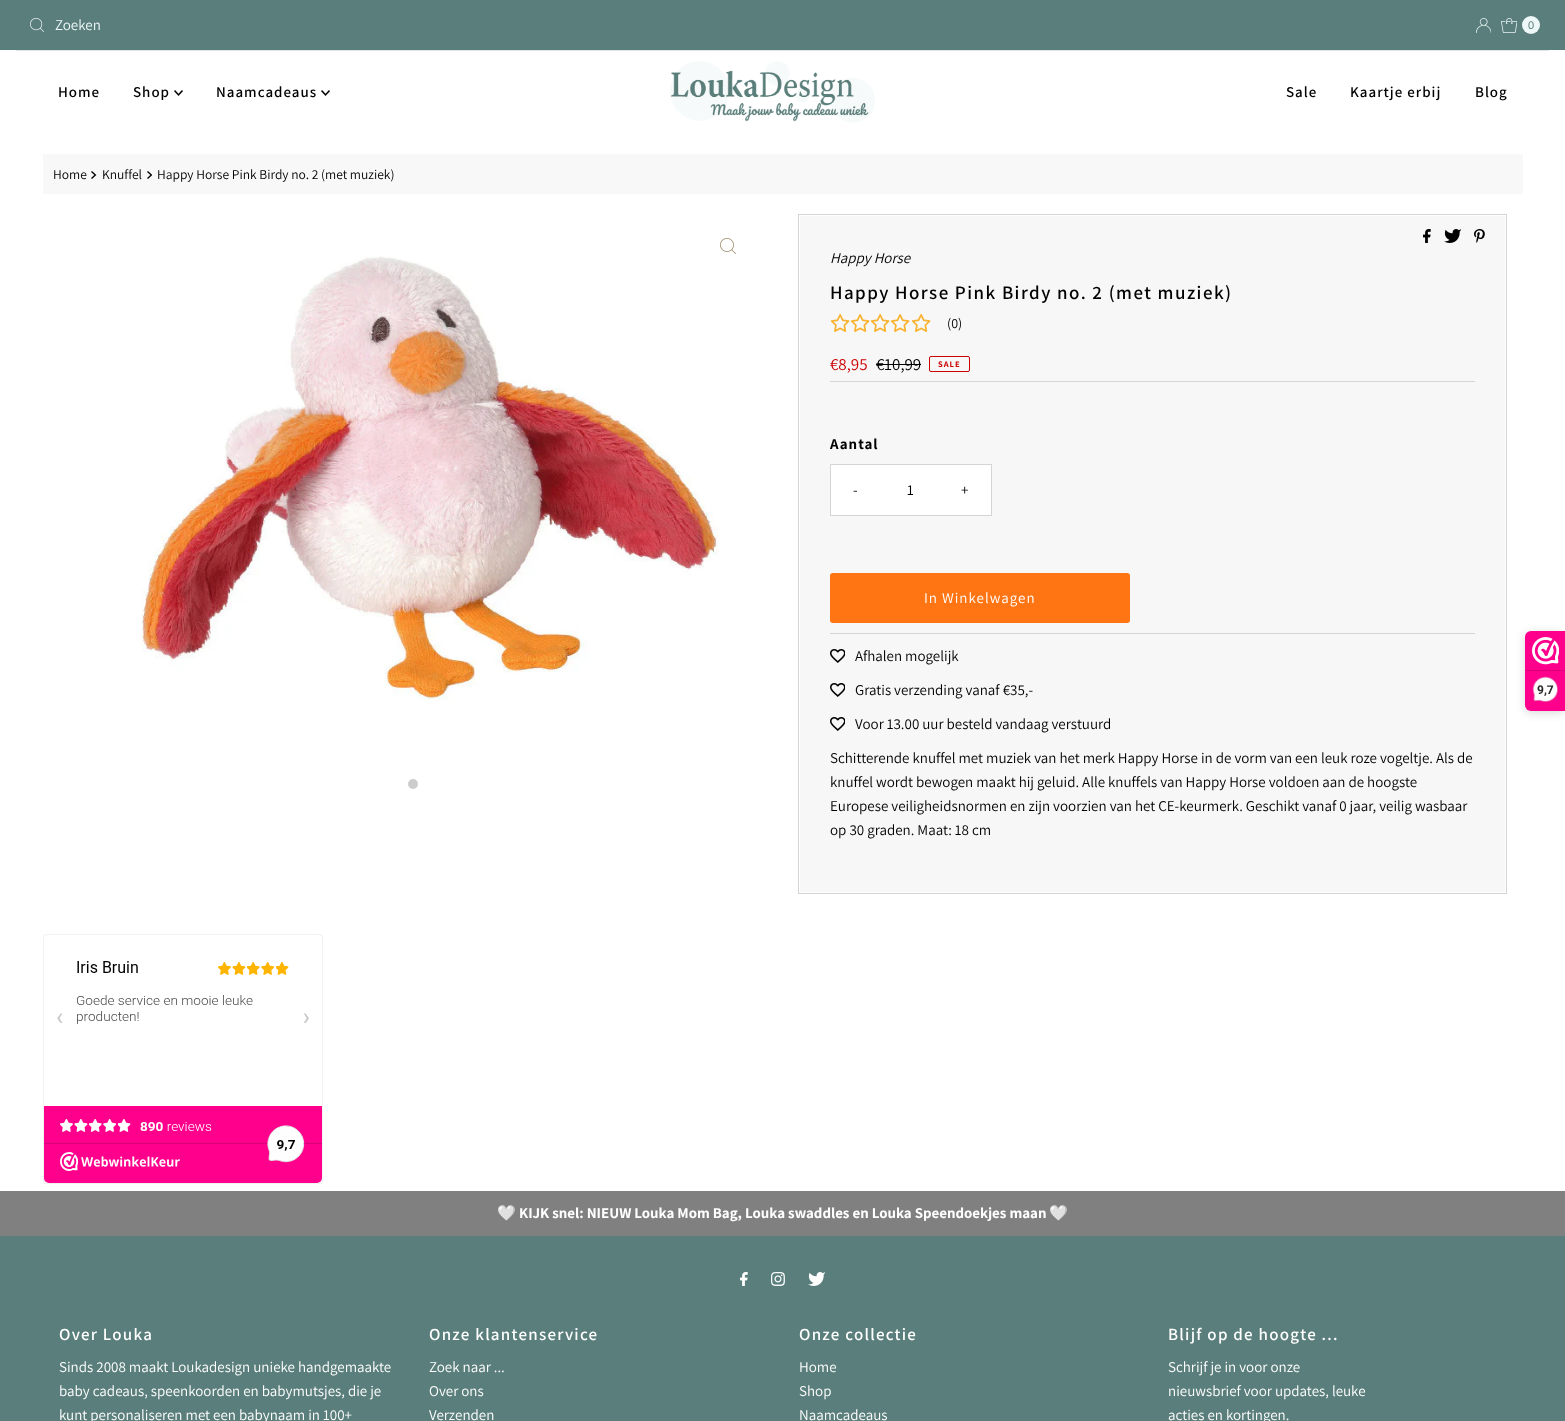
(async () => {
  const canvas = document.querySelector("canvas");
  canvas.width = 1565;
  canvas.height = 1421;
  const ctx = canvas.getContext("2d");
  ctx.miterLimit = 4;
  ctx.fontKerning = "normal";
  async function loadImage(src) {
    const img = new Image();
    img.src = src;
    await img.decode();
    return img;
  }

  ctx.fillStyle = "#ffffff";
  ctx.fillRect(0, 0, 1565, 1421);
  ctx.fillStyle = "#597e7b";
  ctx.fillRect(0, 0, 1565, 50);
  ctx.drawImage(await loadImage("img/1.png"), 30, 18, 14, 14);
  ctx.drawImage(await loadImage("img/2.png"), 1476, 18, 15, 15);
  ctx.drawImage(await loadImage("img/3.png"), 1501, 18, 16, 15);
  ctx.fillStyle = "#eff8f8";
  ctx.beginPath();
  ctx.arc(1531, 25, 9, 0, Math.PI * 2);
  ctx.fill();
  ctx.fillStyle = "#e4e4e4";
  ctx.fillRect(16, 50, 1533, 1);
  ctx.drawImage(await loadImage("img/4.png"), 174, 90, 9, 6);
  ctx.drawImage(await loadImage("img/4.png"), 321, 90, 9, 6);
  ctx.drawImage(await loadImage("img/5.png"), 670, 61, 205, 62);
  ctx.fillStyle = "#f8f8f8";
  ctx.fillRect(43, 154, 1480, 40);
  ctx.drawImage(await loadImage("img/6.png"), 91, 171, 6, 8);
  ctx.drawImage(await loadImage("img/7.png"), 147, 171, 5, 8);
  ctx.drawImage(await loadImage("img/8.png"), 720, 238, 16, 16);
  ctx.drawImage(await loadImage("img/9.png"), 141, 256, 578, 444);
  ctx.fillStyle = "#cccccc";
  ctx.beginPath();
  ctx.arc(413, 784, 5, 0, Math.PI * 2);
  ctx.fill();
  ctx.fillStyle = "#f7f7f7";
  ctx.fillRect(800, 216, 705, 676);
  ctx.strokeStyle = "#d5d5d5";
  ctx.strokeRect(798.5, 214.5, 708, 679);
  ctx.drawImage(await loadImage("img/10.png"), 1423, 229, 8, 14);
  ctx.drawImage(await loadImage("img/11.png"), 1444, 229, 17, 14);
  ctx.drawImage(await loadImage("img/12.png"), 1474, 229, 11, 14);
  ctx.drawImage(await loadImage("img/13.png"), 830, 314, 20, 18);
  ctx.drawImage(await loadImage("img/13.png"), 850, 314, 20, 18);
  ctx.drawImage(await loadImage("img/13.png"), 870, 314, 20, 18);
  ctx.drawImage(await loadImage("img/13.png"), 890, 314, 20, 18);
  ctx.drawImage(await loadImage("img/13.png"), 911, 314, 20, 18);
  ctx.fillStyle = "#d5d5d5";
  ctx.fillRect(830, 381, 645, 1);
  ctx.fillStyle = "#000000";
  ctx.fillRect(876, 364, 45, 1);
  ctx.beginPath();
  ctx.roundRect(929.5, 356.5, 40, 15, 1.5);
  ctx.strokeStyle = "#cc0000";
  ctx.stroke();
  ctx.strokeStyle = "#d5d5d5";
  ctx.strokeRect(830.5, 464.5, 161, 51);
  ctx.fillStyle = "#ffffff";
  ctx.fillRect(831, 465, 160, 50);
  ctx.fillStyle = "#d5d5d5";
  ctx.fillRect(830, 633, 645, 1);
  ctx.fillStyle = "#ff7514";
  ctx.beginPath();
  ctx.roundRect(830, 573, 300, 50, 3);
  ctx.fill();
  ctx.drawImage(await loadImage("img/14.png"), 830, 649, 15, 14);
  ctx.drawImage(await loadImage("img/14.png"), 830, 683, 15, 14);
  ctx.drawImage(await loadImage("img/14.png"), 830, 717, 15, 14);
  ctx.drawImage(await loadImage("img/15.png"), 43, 934, 280, 250);
  ctx.fillStyle = "#808080";
  ctx.fillRect(0, 1191, 1565, 45);
  ctx.fillStyle = "#597e7b";
  ctx.fillRect(0, 1236, 1565, 185);
  ctx.drawImage(await loadImage("img/16.png"), 740, 1272, 8, 14);
  ctx.drawImage(await loadImage("img/17.png"), 771, 1272, 14, 14);
  ctx.drawImage(await loadImage("img/18.png"), 808, 1272, 17, 14);
  ctx.fillStyle = "rgba(0, 0, 0, 0.15)";
  ctx.filter = "blur(5px)";
  ctx.beginPath();
  ctx.roundRect(1525, 633, 40, 80, 6);
  ctx.fill();
  ctx.filter = "none";
  ctx.fillStyle = "#fe008c";
  ctx.beginPath();
  ctx.roundRect(1525, 631, 40, 80, [6, 0, 0, 6]);
  ctx.fill();
  ctx.drawImage(await loadImage("img/19.png"), 1532, 637, 27, 28);
  ctx.fillStyle = "#d80077";
  ctx.fillRect(1526, 670, 39, 1);
  ctx.drawImage(await loadImage("img/20.png"), 1532, 676, 26, 26);
  ctx.font = "15px Assistant";
  ctx.fillStyle = "#eff8f8";
  ctx.fillText("Zoeken", 55, 30);
  ctx.font = "11px Liberation Sans";
  ctx.fillStyle = "#597e7b";
  ctx.fillText("0", 1528, 29);
  ctx.letterSpacing = "1px";
  ctx.font = "600 15px Assistant";
  ctx.fillStyle = "#000000";
  for (const [text, x, y] of [
    ["Home", 58, 97],
    ["Shop", 133, 97],
    ["Naamcadeaus", 216, 97],
    ["Sale", 1286, 97],
    ["Kaartje erbij", 1350, 97],
    ["Blog", 1475, 97],
  ]) {
    ctx.fillText(text, x, y);
  }
  ctx.letterSpacing = "0px";
  ctx.font = "13.5px Assistant";
  for (const [text, x, y] of [
    ["Home", 53, 179],
    ["Knuffel", 102, 179],
    ["Happy Horse Pink Birdy no. 2 (met muziek)", 157, 179],
  ]) {
    ctx.fillText(text, x, y);
  }
  ctx.font = "italic 15px Assistant";
  ctx.fillText("Happy Horse", 830, 263);
  ctx.letterSpacing = "1.45px";
  ctx.font = "600 19px Assistant";
  ctx.fillText("Happy Horse Pink Birdy no. 2 (met muziek)", 830, 299);
  ctx.letterSpacing = "0px";
  ctx.font = "14px Assistant";
  ctx.fillText("(0)", 947, 328);
  ctx.font = "17px Assistant";
  ctx.fillStyle = "#cc0000";
  ctx.fillText("€8,95", 830, 370);
  ctx.fillStyle = "#000000";
  ctx.fillText("€10,99", 876, 370);
  ctx.letterSpacing = "1px";
  ctx.font = "bold 8.5px Assistant";
  ctx.fillStyle = "#cc0000";
  ctx.fillText("SALE", 938, 367);
  ctx.font = "bold 15px Assistant";
  ctx.fillStyle = "#000000";
  ctx.fillText("Aantal", 830, 449);
  ctx.font = "15px Assistant";
  ctx.fillText("-", 853, 495);
  ctx.letterSpacing = "0px";
  ctx.fillText("1", 907, 495);
  ctx.letterSpacing = "1px";
  ctx.fillText("+", 961, 495);
  ctx.fillStyle = "#ffffff";
  ctx.fillText("In Winkelwagen", 924, 603);
  ctx.letterSpacing = "0px";
  ctx.fillStyle = "#000000";
  for (const [text, x, y] of [
    ["Afhalen mogelijk", 855, 661],
    ["Gratis verzending vanaf €35,-", 855, 695],
    ["Voor 13.00 uur besteld vandaag verstuurd", 855, 729],
    ["Schitterende knuffel met muziek van het merk Happy Horse in de vorm van een leuk roze vogeltje. Als de", 830, 763],
    ["knuffel wordt bewogen maakt hij geluid. Alle knuffels van Happy Horse voldoen aan de hoogste", 830, 787],
    ["Europese veiligheidsnormen en zijn voorzien van het CE-keurmerk. Geschikt vanaf 0 jaar, veilig wasbaar", 830, 811],
    ["op 30 graden. Maat: 18 cm", 830, 835],
  ]) {
    ctx.fillText(text, x, y);
  }
  ctx.font = "bold 15px Noto Color Emoji";
  ctx.fillStyle = "#ffffff";
  ctx.fillText("🤍", 497, 1218);
  ctx.font = "bold 15px Assistant";
  ctx.fillText("KIJK snel: NIEUW Louka Mom Bag, Louka swaddles en Louka Speendoekjes maan", 519, 1218);
  ctx.font = "bold 15px Noto Color Emoji";
  ctx.fillText("🤍", 1049, 1218);
  ctx.letterSpacing = "1.25px";
  ctx.font = "600 17px Assistant";
  ctx.fillText("Over Louka", 59, 1340);
  ctx.letterSpacing = "0px";
  ctx.font = "15px Assistant";
  for (const [text, x, y] of [
    ["Sinds 2008 maakt Loukadesign unieke handgemaakte", 59, 1372],
    ["baby cadeaus, speenkoorden en babymutsjes, die je", 59, 1396],
    ["kunt personaliseren met een babynaam in 100+", 59, 1420],
  ]) {
    ctx.fillText(text, x, y);
  }
  ctx.letterSpacing = "1.25px";
  ctx.font = "600 17px Assistant";
  ctx.fillText("Onze klantenservice", 429, 1340);
  ctx.letterSpacing = "0px";
  ctx.font = "15px Assistant";
  for (const [text, x, y] of [
    ["Zoek naar ...", 429, 1372],
    ["Over ons", 429, 1396],
    ["Verzenden", 429, 1420],
  ]) {
    ctx.fillText(text, x, y);
  }
  ctx.letterSpacing = "1.25px";
  ctx.font = "600 17px Assistant";
  ctx.fillText("Onze collectie", 799, 1340);
  ctx.letterSpacing = "0px";
  ctx.font = "15px Assistant";
  for (const [text, x, y] of [
    ["Home", 799, 1372],
    ["Shop", 799, 1396],
    ["Naamcadeaus", 799, 1420],
  ]) {
    ctx.fillText(text, x, y);
  }
  ctx.letterSpacing = "1.25px";
  ctx.font = "600 17px Assistant";
  ctx.fillText("Blijf op de hoogte ...", 1168, 1340);
  ctx.letterSpacing = "0px";
  ctx.font = "15px Assistant";
  for (const [text, x, y] of [
    ["Schrijf je in voor onze", 1168, 1372],
    ["nieuwsbrief voor updates, leuke", 1168, 1396],
    ["acties en kortingen.", 1168, 1420],
  ]) {
    ctx.fillText(text, x, y);
  }
  ctx.font = "bold 12px Roboto";
  ctx.fillStyle = "#272626";
  ctx.fillText("9,7", 1537, 694);
})();
